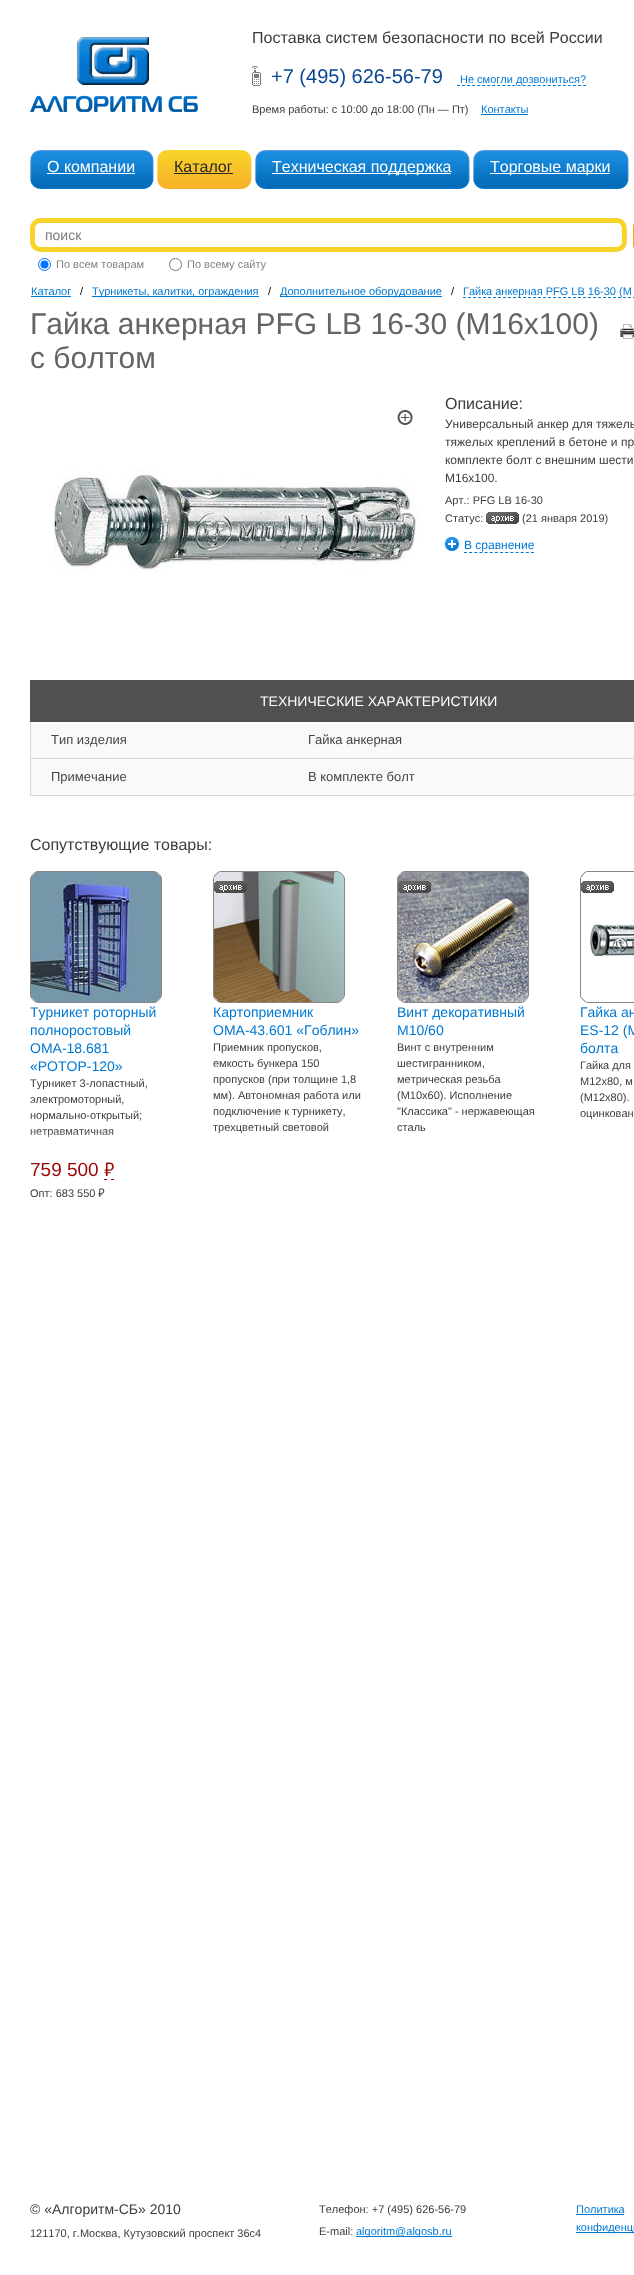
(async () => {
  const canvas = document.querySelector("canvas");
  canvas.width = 634;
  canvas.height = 2275;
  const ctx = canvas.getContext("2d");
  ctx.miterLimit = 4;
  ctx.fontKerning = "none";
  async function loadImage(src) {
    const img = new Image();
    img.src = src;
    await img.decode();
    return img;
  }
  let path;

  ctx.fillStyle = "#ffffff";
  ctx.fillRect(0, 0, 634, 2275);
  ctx.drawImage(await loadImage("img/1.png"), 30, 37, 168, 75);
  ctx.drawImage(await loadImage("img/2.png"), 252, 66, 9, 20);
  path = new Path2D("M457 85.5H586");
  ctx.strokeStyle = "#0078d2";
  ctx.setLineDash([3, 2.04]);
  ctx.stroke(path);
  ctx.fillStyle = "#0078d2";
  ctx.fillRect(481, 114, 47, 1);
  ctx.drawImage(await loadImage("img/3.png"), 41, 150, 113, 39);
  ctx.drawImage(await loadImage("img/4.png"), 30, 150, 11, 39);
  ctx.fillStyle = "#ffffff";
  ctx.fillRect(47, 173, 88, 1);
  ctx.drawImage(await loadImage("img/5.png"), 168, 150, 84, 39);
  ctx.drawImage(await loadImage("img/6.png"), 157, 150, 11, 39);
  ctx.fillStyle = "#282828";
  ctx.fillRect(174, 173, 59, 1);
  ctx.drawImage(await loadImage("img/7.png"), 266, 150, 204, 39);
  ctx.drawImage(await loadImage("img/4.png"), 255, 150, 11, 39);
  ctx.fillStyle = "#ffffff";
  ctx.fillRect(272, 173, 179, 1);
  ctx.drawImage(await loadImage("img/8.png"), 484, 150, 145, 39);
  ctx.drawImage(await loadImage("img/4.png"), 473, 150, 11, 39);
  ctx.fillRect(490, 173, 120, 1);
  ctx.drawImage(await loadImage("img/9.png"), 40, 218, 587, 34);
  ctx.drawImage(await loadImage("img/10.png"), 30, 218, 10, 34);
  ctx.fillRect(39, 223, 580, 1);
  ctx.drawImage(await loadImage("img/11.png"), 633, 218, 1, 35);
  ctx.beginPath();
  ctx.arc(44.5, 264.5, 6, 0, Math.PI * 2);
  ctx.strokeStyle = "#0075ff";
  ctx.setLineDash([]);
  ctx.stroke();
  ctx.fillStyle = "#0075ff";
  ctx.beginPath();
  ctx.arc(44.5, 264.5, 4, 0, Math.PI * 2);
  ctx.fill();
  ctx.beginPath();
  ctx.arc(175.5, 264.5, 6, 0, Math.PI * 2);
  ctx.strokeStyle = "#767676";
  ctx.stroke();
  for (const [x, y, w, h, color] of [
    [31, 296, 40, 1, "#0078d2"],
    [92, 296, 167, 1, "#0078d2"],
    [280, 296, 162, 1, "#0078d2"],
  ]) {
    ctx.fillStyle = color;
    ctx.fillRect(x, y, w, h);
  }
  path = new Path2D("M463 297.5H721");
  ctx.strokeStyle = "#0078d2";
  ctx.setLineDash([3, 2]);
  ctx.stroke(path);
  ctx.drawImage(await loadImage("img/12.png"), 620, 324, 14, 15);
  ctx.drawImage(await loadImage("img/13.png"), 397, 410, 16, 15);
  ctx.drawImage(await loadImage("img/14.png"), 54, 469, 366, 104);
  ctx.drawImage(await loadImage("img/15.png"), 486, 512, 33, 12);
  ctx.drawImage(await loadImage("img/16.png"), 445, 537, 14, 14);
  path = new Path2D("M464 552.5H534");
  ctx.setLineDash([3, 2.15]);
  ctx.stroke(path);
  for (const [x, y, w, h, color] of [
    [30, 680, 604, 42, "#505050"],
    [31, 722, 603, 73, "#f9f9f9"],
    [30, 722, 1, 74, "#d7d7d7"],
    [31, 758, 603, 1, "#d7d7d7"],
    [31, 795, 603, 1, "#d7d7d7"],
  ]) {
    ctx.fillStyle = color;
    ctx.fillRect(x, y, w, h);
  }
  ctx.drawImage(await loadImage("img/18.png"), 31, 872, 130, 130);
  ctx.drawImage(await loadImage("img/17.png"), 30, 871, 132, 132);
  path = new Path2D("M104 1179.5H107M111 1179.5H114");
  ctx.strokeStyle = "#980606";
  ctx.setLineDash([]);
  ctx.stroke(path);
  ctx.drawImage(await loadImage("img/21.png"), 214, 872, 130, 130);
  ctx.drawImage(await loadImage("img/20.png"), 213, 871, 132, 132);
  ctx.drawImage(await loadImage("img/22.png"), 214, 881, 33, 12);
  ctx.drawImage(await loadImage("img/25.png"), 398, 872, 130, 130);
  ctx.drawImage(await loadImage("img/24.png"), 397, 871, 132, 132);
  ctx.drawImage(await loadImage("img/26.png"), 398, 881, 33, 12);
  ctx.fillStyle = "rgba(255, 255, 255, 0.03)";
  ctx.fillRect(398, 1130, 21, 1);
  ctx.drawImage(await loadImage("img/28.png"), 589, 924, 45, 32);
  ctx.drawImage(await loadImage("img/27.png"), 580, 871, 54, 132);
  ctx.drawImage(await loadImage("img/15.png"), 581, 881, 33, 12);
  for (const [x, y, w, h, color] of [
    [356, 2236, 96, 1, "#0078d2"],
    [576, 2214, 48, 1, "#0078d2"],
    [576, 2232, 58, 1, "#0078d2"],
  ]) {
    ctx.fillStyle = color;
    ctx.fillRect(x, y, w, h);
  }
  ctx.font = "16px Liberation Sans";
  ctx.fillStyle = "#3c3c3c";
  ctx.fillText("Поставка систем безопасности по всей России", 252, 43);
  ctx.font = "20px Liberation Sans";
  ctx.fillStyle = "#0a4793";
  ctx.fillText("+7 (495) 626-56-79", 271, 83);
  ctx.font = "11px Liberation Sans";
  ctx.fillStyle = "#0078d2";
  ctx.fillText("Не смогли дозвониться?", 460, 83);
  ctx.fillStyle = "#3c3c3c";
  ctx.fillText("Время работы: с 10:00 до 18:00 (Пн — Пт)", 252, 113);
  ctx.fillStyle = "#0078d2";
  ctx.fillText("Контакты", 481, 113);
  ctx.font = "16px Liberation Sans";
  ctx.fillStyle = "#ffffff";
  ctx.fillText("О компании", 47, 172);
  ctx.fillStyle = "#282828";
  ctx.fillText("Каталог", 174, 172);
  ctx.fillStyle = "#ffffff";
  ctx.fillText("Техническая поддержка", 272, 172);
  ctx.fillText("Торговые марки", 490, 172);
  ctx.font = "14px Liberation Sans";
  ctx.fillStyle = "#7a7a7a";
  ctx.fillText("поиск", 45, 240);
  ctx.font = "11px Liberation Sans";
  ctx.fillStyle = "#828282";
  ctx.fillText("По всем товарам", 56, 268);
  ctx.fillText("По всему сайту", 187, 268);
  ctx.fillStyle = "#0078d2";
  ctx.fillText("Каталог", 31, 295);
  ctx.fillStyle = "#000000";
  ctx.fillText("/", 80, 295);
  ctx.fillStyle = "#0078d2";
  ctx.fillText("Турникеты, калитки, ограждения", 92, 295);
  ctx.fillStyle = "#000000";
  ctx.fillText("/", 268, 295);
  ctx.fillStyle = "#0078d2";
  ctx.fillText("Дополнительное оборудование", 280, 295);
  ctx.fillStyle = "#000000";
  ctx.fillText("/", 451, 295);
  ctx.fillStyle = "#0078d2";
  ctx.fillText("Гайка анкерная PFG LB 16-30 (M", 463, 295);
  ctx.font = "30px Liberation Sans";
  ctx.fillStyle = "#646464";
  ctx.fillText("Гайка анкерная PFG LB 16-30 (M16x100)", 30, 334);
  ctx.fillText("с болтом", 30, 368);
  ctx.font = "16px Liberation Sans";
  ctx.fillStyle = "#3c3c3c";
  ctx.fillText("Описание:", 445, 409);
  ctx.font = "12px Liberation Sans";
  for (const [text, x, y] of [
    ["Универсальный анкер для тяжелы", 445, 428],
    ["тяжелых креплений в бетоне и пр", 445, 446],
    ["комплекте болт с внешним шести", 445, 464],
    ["М16х100.", 445, 482],
  ]) {
    ctx.fillText(text, x, y);
  }
  ctx.font = "11px Liberation Sans";
  for (const [text, x, y] of [
    ["Арт.: PFG LB 16-30", 445, 504],
    ["Статус:", 445, 522],
    ["(21 января 2019)", 522, 522],
  ]) {
    ctx.fillText(text, x, y);
  }
  ctx.font = "12px Liberation Sans";
  ctx.fillStyle = "#0078d2";
  ctx.fillText("В сравнение", 464, 549);
  ctx.font = "14px Liberation Sans";
  ctx.fillStyle = "#ffffff";
  ctx.fillText("ТЕХНИЧЕСКИЕ ХАРАКТЕРИСТИКИ", 260, 706);
  ctx.font = "13px Liberation Sans";
  ctx.fillStyle = "#444444";
  for (const [text, x, y] of [
    ["Тип изделия", 51, 744],
    ["Гайка анкерная", 308, 744],
    ["Примечание", 51, 781],
    ["В комплекте болт", 308, 781],
  ]) {
    ctx.fillText(text, x, y);
  }
  ctx.font = "16px Liberation Sans";
  ctx.fillStyle = "#3c3c3c";
  ctx.fillText("Сопутствующие товары:", 30, 850);
  ctx.font = "14px Liberation Sans";
  ctx.fillStyle = "#0078d2";
  for (const [text, x, y] of [
    ["Турникет роторный", 30, 1017],
    ["полноростовый", 30, 1035],
    ["ОМА-18.681", 30, 1053],
    ["«РОТОР-120»", 30, 1071],
  ]) {
    ctx.fillText(text, x, y);
  }
  ctx.font = "11px Liberation Sans";
  ctx.fillStyle = "#3c3c3c";
  for (const [text, x, y] of [
    ["Турникет 3-лопастный,", 30, 1087],
    ["электромоторный,", 30, 1103],
    ["нормально-открытый;", 30, 1119],
    ["нетравматичная", 30, 1135],
  ]) {
    ctx.fillText(text, x, y);
  }
  ctx.drawImage(await loadImage("img/19.png"), 30, 1130, 130, 21);
  ctx.font = "19px Liberation Sans";
  ctx.fillStyle = "#980606";
  ctx.fillText("759 500", 30, 1176);
  ctx.font = "italic bold 19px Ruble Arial";
  ctx.fillText("руб.", 104, 1176);
  ctx.font = "11px Liberation Sans";
  ctx.fillStyle = "#3c3c3c";
  ctx.fillText("Опт: 683 550", 30, 1197);
  ctx.font = "italic bold 12px Ruble Arial";
  ctx.fillText("руб.", 98, 1197);
  ctx.font = "14px Liberation Sans";
  ctx.fillStyle = "#0078d2";
  ctx.fillText("Картоприемник", 213, 1017);
  ctx.fillText("ОМА-43.601 «Гоблин»", 213, 1035);
  ctx.font = "11px Liberation Sans";
  ctx.fillStyle = "#3c3c3c";
  for (const [text, x, y] of [
    ["Приемник пропусков,", 213, 1051],
    ["емкость бункера 150", 213, 1067],
    ["пропусков (при толщине 1,8", 213, 1083],
    ["мм). Автономная работа или", 213, 1099],
    ["подключение к турникету,", 213, 1115],
    ["трехцветный световой", 213, 1131],
  ]) {
    ctx.fillText(text, x, y);
  }
  ctx.drawImage(await loadImage("img/23.png"), 214, 1130, 111, 20);
  ctx.font = "14px Liberation Sans";
  ctx.fillStyle = "#0078d2";
  ctx.fillText("Винт декоративный", 397, 1017);
  ctx.fillText("М10/60", 397, 1035);
  ctx.font = "11px Liberation Sans";
  ctx.fillStyle = "#3c3c3c";
  for (const [text, x, y] of [
    ["Винт с внутренним", 397, 1051],
    ["шестигранником,", 397, 1067],
    ["метрическая резьба", 397, 1083],
    ["(M10x60). Исполнение", 397, 1099],
    ["\"Классика\" - нержавеющая", 397, 1115],
    ["сталь", 397, 1131],
  ]) {
    ctx.fillText(text, x, y);
  }
  ctx.font = "14px Liberation Sans";
  ctx.fillStyle = "#0078d2";
  for (const [text, x, y] of [
    ["Гайка ан", 580, 1017],
    ["ES-12 (М", 580, 1035],
    ["болта", 580, 1053],
  ]) {
    ctx.fillText(text, x, y);
  }
  ctx.font = "11px Liberation Sans";
  ctx.fillStyle = "#3c3c3c";
  for (const [text, x, y] of [
    ["Гайка для", 580, 1069],
    ["M12x80, м", 580, 1085],
    ["(M12x80).", 580, 1101],
    ["оцинкован", 580, 1117],
  ]) {
    ctx.fillText(text, x, y);
  }
  ctx.font = "14px Liberation Sans";
  ctx.fillText("© «Алгоритм-СБ» 2010", 30, 2214);
  ctx.font = "11px Liberation Sans";
  for (const [text, x, y] of [
    ["121170, г.Москва, Кутузовский проспект 36с4", 30, 2237],
    ["Телефон: +7 (495) 626-56-79", 319, 2213],
    ["E-mail:", 319, 2235],
  ]) {
    ctx.fillText(text, x, y);
  }
  ctx.fillStyle = "#0078d2";
  for (const [text, x, y] of [
    ["algoritm@algosb.ru", 356, 2235],
    ["Политика", 576, 2213],
    ["конфиденци", 576, 2231],
  ]) {
    ctx.fillText(text, x, y);
  }
})();
